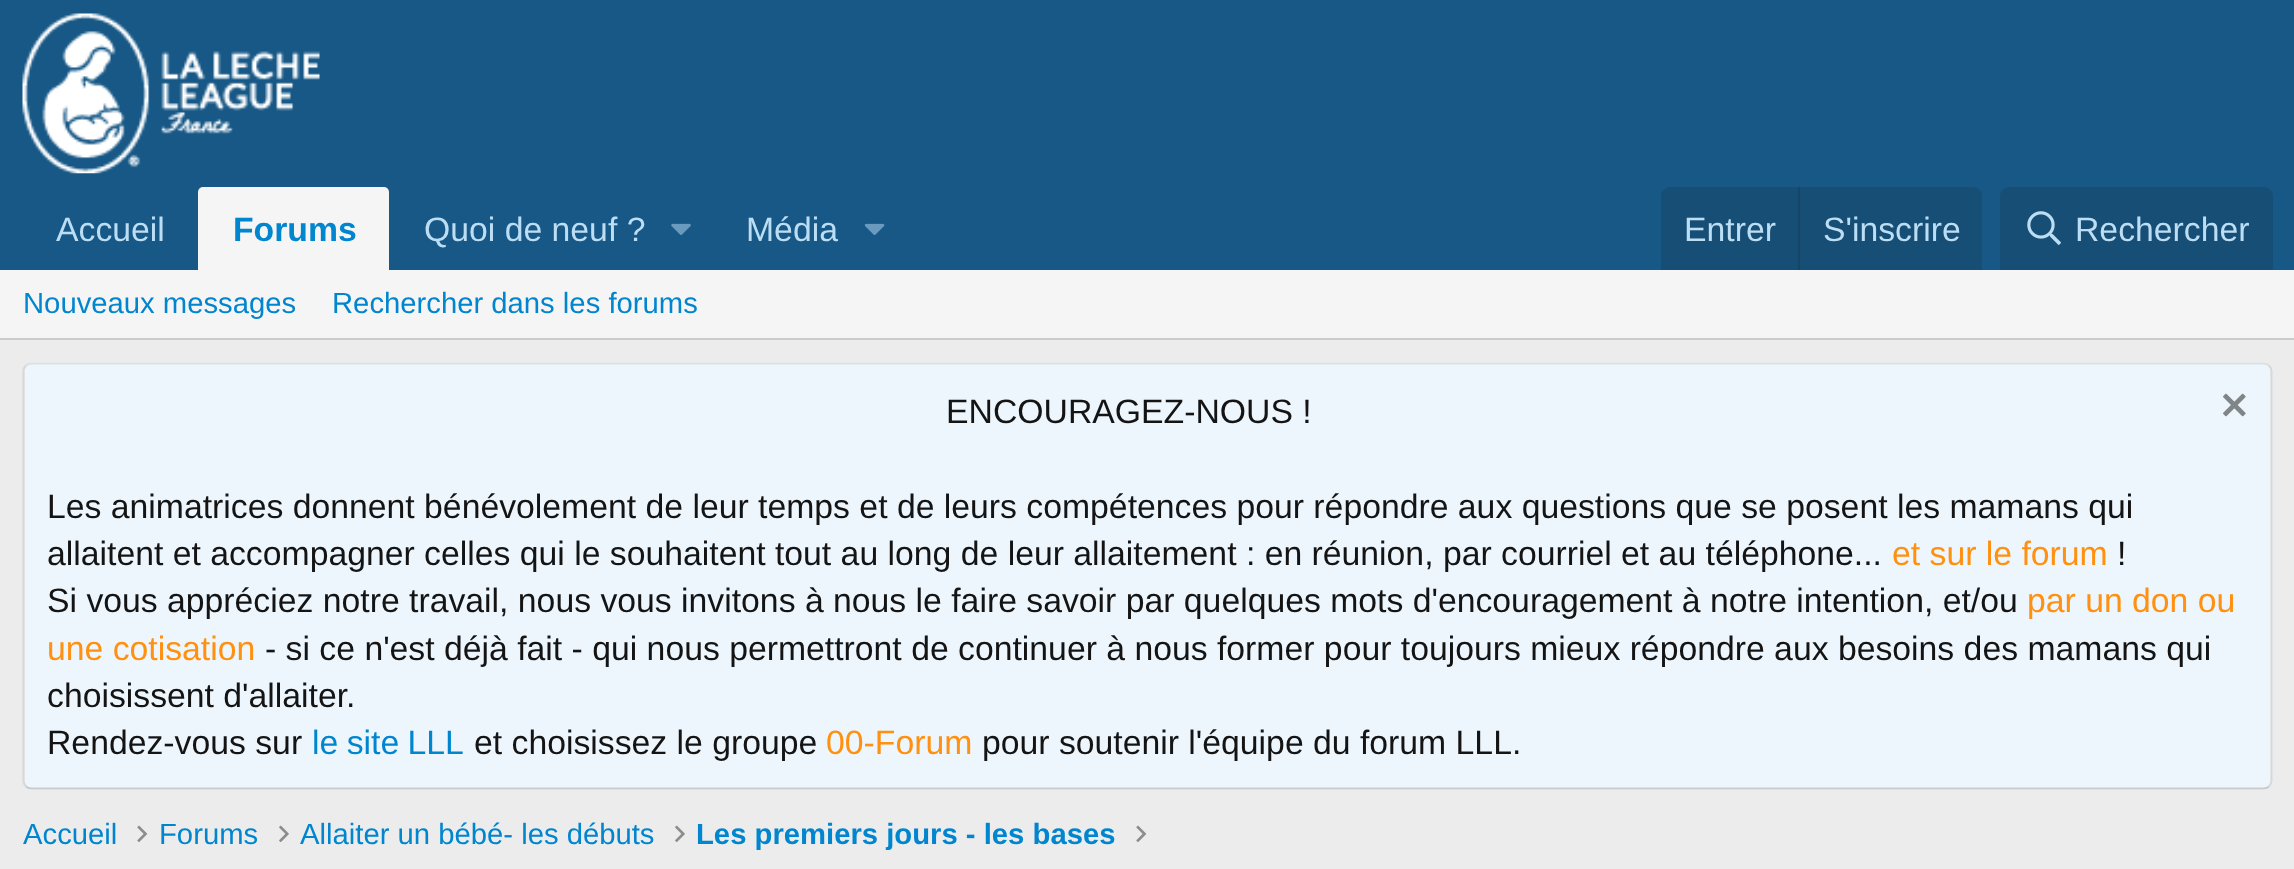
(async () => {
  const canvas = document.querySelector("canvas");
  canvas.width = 2294;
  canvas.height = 869;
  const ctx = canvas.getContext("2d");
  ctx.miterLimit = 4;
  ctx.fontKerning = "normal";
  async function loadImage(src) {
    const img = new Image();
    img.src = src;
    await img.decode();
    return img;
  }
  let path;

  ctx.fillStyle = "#ececec";
  ctx.fillRect(0, 0, 2294, 869);
  ctx.fillStyle = "#185886";
  ctx.fillRect(0, 0, 2294, 270);
  ctx.drawImage(await loadImage("img/1.png"), 22, 13, 298, 161);
  ctx.fillStyle = "#f5f5f5";
  ctx.beginPath();
  ctx.roundRect(198, 187, 191, 83, [5, 5, 0, 0]);
  ctx.fill();
  ctx.drawImage(await loadImage("img/2.png"), 671, 223, 20, 12);
  ctx.drawImage(await loadImage("img/3.png"), 864, 223, 21, 12);
  ctx.fillStyle = "#174e75";
  ctx.beginPath();
  ctx.roundRect(1661, 187, 321, 83, [9, 9, 0, 0]);
  ctx.fill();
  ctx.fillStyle = "#174566";
  ctx.fillRect(1798, 187, 2, 83);
  ctx.fillStyle = "#174e75";
  ctx.beginPath();
  ctx.roundRect(2000, 187, 273, 83, [9, 9, 0, 0]);
  ctx.fill();
  ctx.drawImage(await loadImage("img/4.png"), 2027, 211, 34, 34);
  ctx.fillStyle = "#f5f5f5";
  ctx.fillRect(0, 270, 2294, 68);
  ctx.fillStyle = "#cbcbcb";
  ctx.fillRect(0, 338, 2294, 2);
  ctx.fillStyle = "#edf6fd";
  ctx.beginPath();
  ctx.roundRect(23, 362, 2250, 428, 9);
  ctx.fill();
  path = new Path2D("M26 365.5C27.5 364 29.5 363.5 31.5 363.5H2263.5C2265.5 363.5 2267.5 364 2269 365.5");
  ctx.strokeStyle = "#dfdfdf";
  ctx.lineWidth = 2.2;
  ctx.stroke(path);
  path = new Path2D("M2269 365.5C2270.5 367 2271.5 369 2271.5 371V781C2271.5 783 2270.5 785 2269 786.5");
  ctx.strokeStyle = "#d8d8d8";
  ctx.stroke(path);
  path = new Path2D("M2269 786.5C2267.5 788 2265.5 788.5 2263.5 788.5H31.5C29.5 788.5 27.5 788 26 786.5");
  ctx.strokeStyle = "#cbcbcb";
  ctx.stroke(path);
  path = new Path2D("M26 786.5C24.5 785 23.5 783 23.5 781V371C23.5 369 24.5 367 26 365.5");
  ctx.strokeStyle = "#d8d8d8";
  ctx.stroke(path);
  ctx.drawImage(await loadImage("img/5.png"), 2223, 393, 23, 24);
  ctx.drawImage(await loadImage("img/6.png"), 137, 825, 11, 17);
  ctx.drawImage(await loadImage("img/7.png"), 279, 825, 10, 17);
  ctx.drawImage(await loadImage("img/7.png"), 675, 825, 10, 17);
  ctx.drawImage(await loadImage("img/6.png"), 1136, 825, 11, 17);
  ctx.font = "33.75px Liberation Sans";
  ctx.fillStyle = "#bcdef5";
  ctx.fillText("Accueil", 56, 241);
  ctx.font = "bold 33.75px Liberation Sans";
  ctx.fillStyle = "#0085cf";
  ctx.fillText("Forums", 233, 241);
  ctx.font = "33.75px Liberation Sans";
  ctx.fillStyle = "#bcdef5";
  for (const [text, x, y] of [
    ["Quoi de neuf ?", 424, 241],
    ["Média", 746, 241],
    ["Entrer", 1684, 241],
    ["S'inscrire", 1823, 241],
    ["Rechercher", 2075, 241],
  ]) {
    ctx.fillText(text, x, y);
  }
  ctx.font = "29.25px Liberation Sans";
  ctx.fillStyle = "#0085cf";
  ctx.fillText("Nouveaux messages", 23, 313);
  ctx.fillText("Rechercher dans les forums", 332, 313);
  ctx.font = "33.75px Liberation Sans";
  ctx.fillStyle = "#141414";
  for (const [text, x, y] of [
    ["ENCOURAGEZ-NOUS !", 946, 423],
    ["Les animatrices donnent bénévolement de leur temps et de leurs compétences pour répondre aux questions que se posent les mamans qui", 47, 518],
    ["allaitent et accompagner celles qui le souhaitent tout au long de leur allaitement : en réunion, par courriel et au téléphone...", 47, 565],
  ]) {
    ctx.fillText(text, x, y);
  }
  ctx.fillStyle = "#ff9010";
  ctx.fillText("et sur le forum", 1892, 565);
  ctx.fillStyle = "#141414";
  ctx.fillText("!", 2117, 565);
  ctx.fillText("Si vous appréciez notre travail, nous vous invitons à nous le faire savoir par quelques mots d'encouragement à notre intention, et/ou", 47, 612);
  ctx.fillStyle = "#ff9010";
  ctx.fillText("par un don ou", 2027, 612);
  ctx.fillText("une cotisation", 47, 660);
  ctx.fillStyle = "#141414";
  for (const [text, x, y] of [
    ["- si ce n'est déjà fait - qui nous permettront de continuer à nous former pour toujours mieux répondre aux besoins des mamans qui", 265, 660],
    ["choisissent d'allaiter.", 47, 707],
    ["Rendez-vous sur", 47, 754],
  ]) {
    ctx.fillText(text, x, y);
  }
  ctx.wordSpacing = "-1px";
  ctx.fillStyle = "#0085cf";
  ctx.fillText("le site LLL", 312, 754);
  ctx.wordSpacing = "0px";
  ctx.fillStyle = "#141414";
  ctx.fillText("et choisissez le groupe", 474, 754);
  ctx.fillStyle = "#ff9010";
  ctx.fillText("00-Forum", 826, 754);
  ctx.fillStyle = "#141414";
  ctx.fillText("pour soutenir l'équipe du forum LLL.", 982, 754);
  ctx.font = "29.25px Liberation Sans";
  ctx.fillStyle = "#0085cf";
  for (const [text, x, y] of [
    ["Accueil", 23, 844],
    ["Forums", 159, 844],
    ["Allaiter un bébé- les débuts", 300, 844],
  ]) {
    ctx.fillText(text, x, y);
  }
  ctx.font = "bold 29.25px Liberation Sans";
  ctx.fillText("Les premiers jours - les bases", 696, 844);
})();
